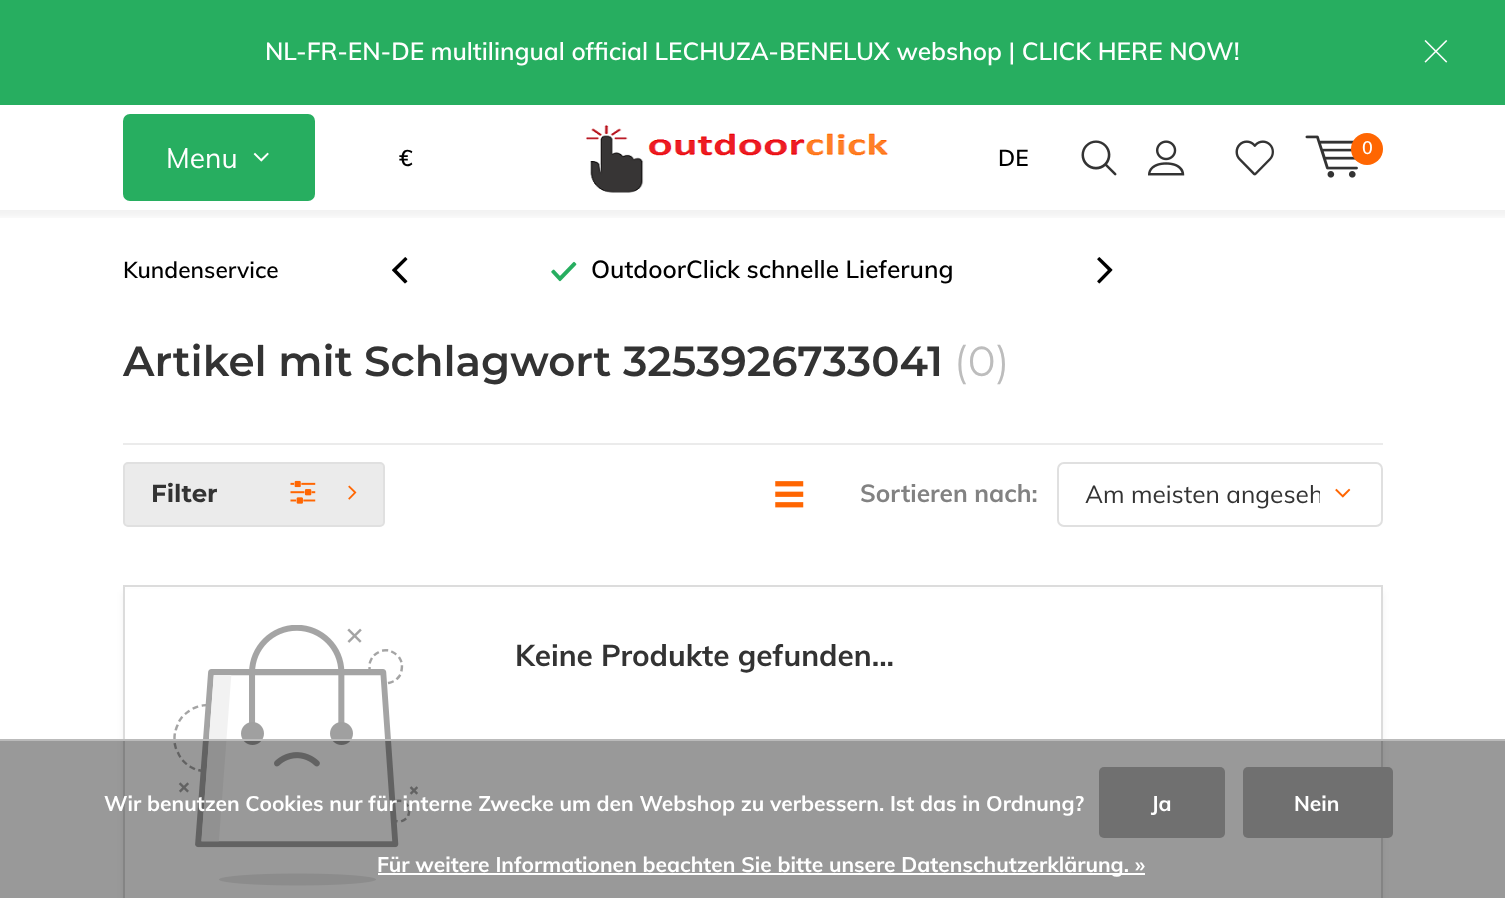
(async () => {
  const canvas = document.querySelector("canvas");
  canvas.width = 1505;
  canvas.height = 898;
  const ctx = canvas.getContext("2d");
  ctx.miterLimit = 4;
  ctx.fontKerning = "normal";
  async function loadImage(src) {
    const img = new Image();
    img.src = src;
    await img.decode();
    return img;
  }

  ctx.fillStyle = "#ffffff";
  ctx.fillRect(0, 0, 1505, 898);
  ctx.fillStyle = "#27ae60";
  ctx.fillRect(0, 0, 1505, 105);
  ctx.drawImage(await loadImage("img/1.png"), 1424, 40, 24, 23);
  ctx.save();
  ctx.beginPath();
  ctx.rect(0, 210, 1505, 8);
  ctx.clip();
  ctx.fillStyle = "rgba(0, 0, 0, 0.05)";
  ctx.filter = "blur(3.5px)";
  ctx.beginPath();
  ctx.rect(-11, 112, 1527, 105);
  ctx.fill();
  ctx.filter = "none";
  ctx.restore();
  ctx.drawImage(await loadImage("img/2.png"), 586, 125, 303, 68);
  ctx.beginPath();
  ctx.roundRect(123, 114, 192, 87, 7);
  ctx.fill();
  ctx.drawImage(await loadImage("img/3.png"), 253, 152, 16, 10);
  ctx.drawImage(await loadImage("img/4.png"), 1081, 140, 36, 36);
  ctx.drawImage(await loadImage("img/5.png"), 1148, 140, 37, 36);
  ctx.drawImage(await loadImage("img/6.png"), 1235, 140, 39, 36);
  ctx.drawImage(await loadImage("img/7.png"), 1305, 135, 53, 43);
  ctx.fillStyle = "#ff6602";
  ctx.beginPath();
  ctx.arc(1367, 149, 16, 0, Math.PI * 2);
  ctx.fill();
  ctx.drawImage(await loadImage("img/8.png"), 392, 257, 16, 27);
  ctx.drawImage(await loadImage("img/9.png"), 1097, 257, 16, 27);
  ctx.drawImage(await loadImage("img/10.png"), 551, 261, 26, 21);
  ctx.fillStyle = "#ebebeb";
  ctx.fillRect(123, 443, 1260, 2);
  ctx.beginPath();
  ctx.roundRect(124, 463, 260, 63, 4);
  ctx.fill();
  ctx.strokeStyle = "#e0e0e0";
  ctx.lineWidth = 2;
  ctx.stroke();
  ctx.drawImage(await loadImage("img/11.png"), 290, 480, 26, 24);
  ctx.drawImage(await loadImage("img/12.png"), 348, 485, 9, 15);
  ctx.drawImage(await loadImage("img/13.png"), 775, 481, 29, 27);
  ctx.drawImage(await loadImage("img/14.png"), 1335, 488, 16, 10);
  ctx.beginPath();
  ctx.roundRect(1058, 463, 324, 63, 6);
  ctx.stroke();
  ctx.fillStyle = "rgba(0, 0, 0, 0.05)";
  ctx.filter = "blur(3.5px)";
  ctx.beginPath();
  ctx.rect(123, 592, 1260, 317);
  ctx.fill();
  ctx.filter = "none";
  ctx.fillStyle = "#ffffff";
  ctx.fillRect(125, 589, 1256, 309);
  ctx.strokeStyle = "#dcdcdc";
  ctx.strokeRect(124, 586, 1258, 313);
  ctx.drawImage(await loadImage("img/15.png"), 173, 625, 245, 261);
  ctx.fillStyle = "rgba(0, 0, 0, 0.4)";
  ctx.fillRect(0, 741, 1505, 157);
  ctx.fillStyle = "#bbbbbb";
  ctx.fillRect(0, 739, 1505, 2);
  ctx.fillStyle = "#707070";
  ctx.beginPath();
  ctx.roundRect(1099, 767, 126, 71, 5);
  ctx.fill();
  ctx.beginPath();
  ctx.roundRect(1243, 767, 150, 71, 5);
  ctx.fill();
  ctx.fillStyle = "#ffffff";
  ctx.fillRect(378, 873, 767, 2);
  ctx.font = "600 24.5px Muli";
  ctx.fillText("NL-FR-EN-DE multilingual official LECHUZA-BENELUX webshop | CLICK HERE NOW!", 265, 60);
  ctx.font = "28px Muli";
  ctx.fillText("Menu", 166, 168);
  ctx.font = "600 22.75px Muli";
  ctx.fillStyle = "#000000";
  ctx.fillText("€", 399, 166);
  ctx.fillText("DE", 998, 166);
  ctx.font = "600 18px Muli";
  ctx.fillStyle = "#ffffff";
  ctx.fillText("0", 1362, 154);
  ctx.font = "600 22.75px Muli";
  ctx.fillStyle = "#000000";
  ctx.fillText("Kundenservice", 123, 278);
  ctx.font = "600 24.5px Muli";
  ctx.fillText("OutdoorClick schnelle Lieferung", 591, 278);
  ctx.font = "600 42px Montserrat";
  ctx.fillStyle = "#333333";
  ctx.fillText("Artikel mit Schlagwort 3253926733041", 123, 376);
  ctx.font = "42px Montserrat";
  ctx.fillStyle = "#bdbdbd";
  ctx.fillText("(0)", 954, 376);
  ctx.font = "bold 24.5px Montserrat";
  ctx.fillStyle = "#333333";
  ctx.fillText("Filter", 151, 502);
  ctx.font = "bold 24.5px Muli";
  ctx.fillStyle = "#828282";
  ctx.fillText("Sortieren nach:", 860, 502);
  ctx.save();
  ctx.beginPath();
  ctx.rect(1085, 478, 235, 31);
  ctx.clip();
  ctx.font = "24.5px Muli";
  ctx.fillStyle = "#333333";
  ctx.fillText("Am meisten angeseh", 1085, 503);
  ctx.restore();
  ctx.font = "bold 29.75px Muli";
  ctx.fillStyle = "#333333";
  ctx.fillText("Keine Produkte gefunden...", 515, 666);
  ctx.font = "bold 21px Muli";
  ctx.fillStyle = "#ffffff";
  for (const [text, x, y] of [
    ["Wir benutzen Cookies nur für interne Zwecke um den Webshop zu verbessern. Ist das in Ordnung?", 104, 811],
    ["Ja", 1151, 811],
    ["Nein", 1294, 811],
    ["Für weitere Informationen beachten Sie bitte unsere Datenschutzerklärung. »", 377, 872],
  ]) {
    ctx.fillText(text, x, y);
  }
})();
